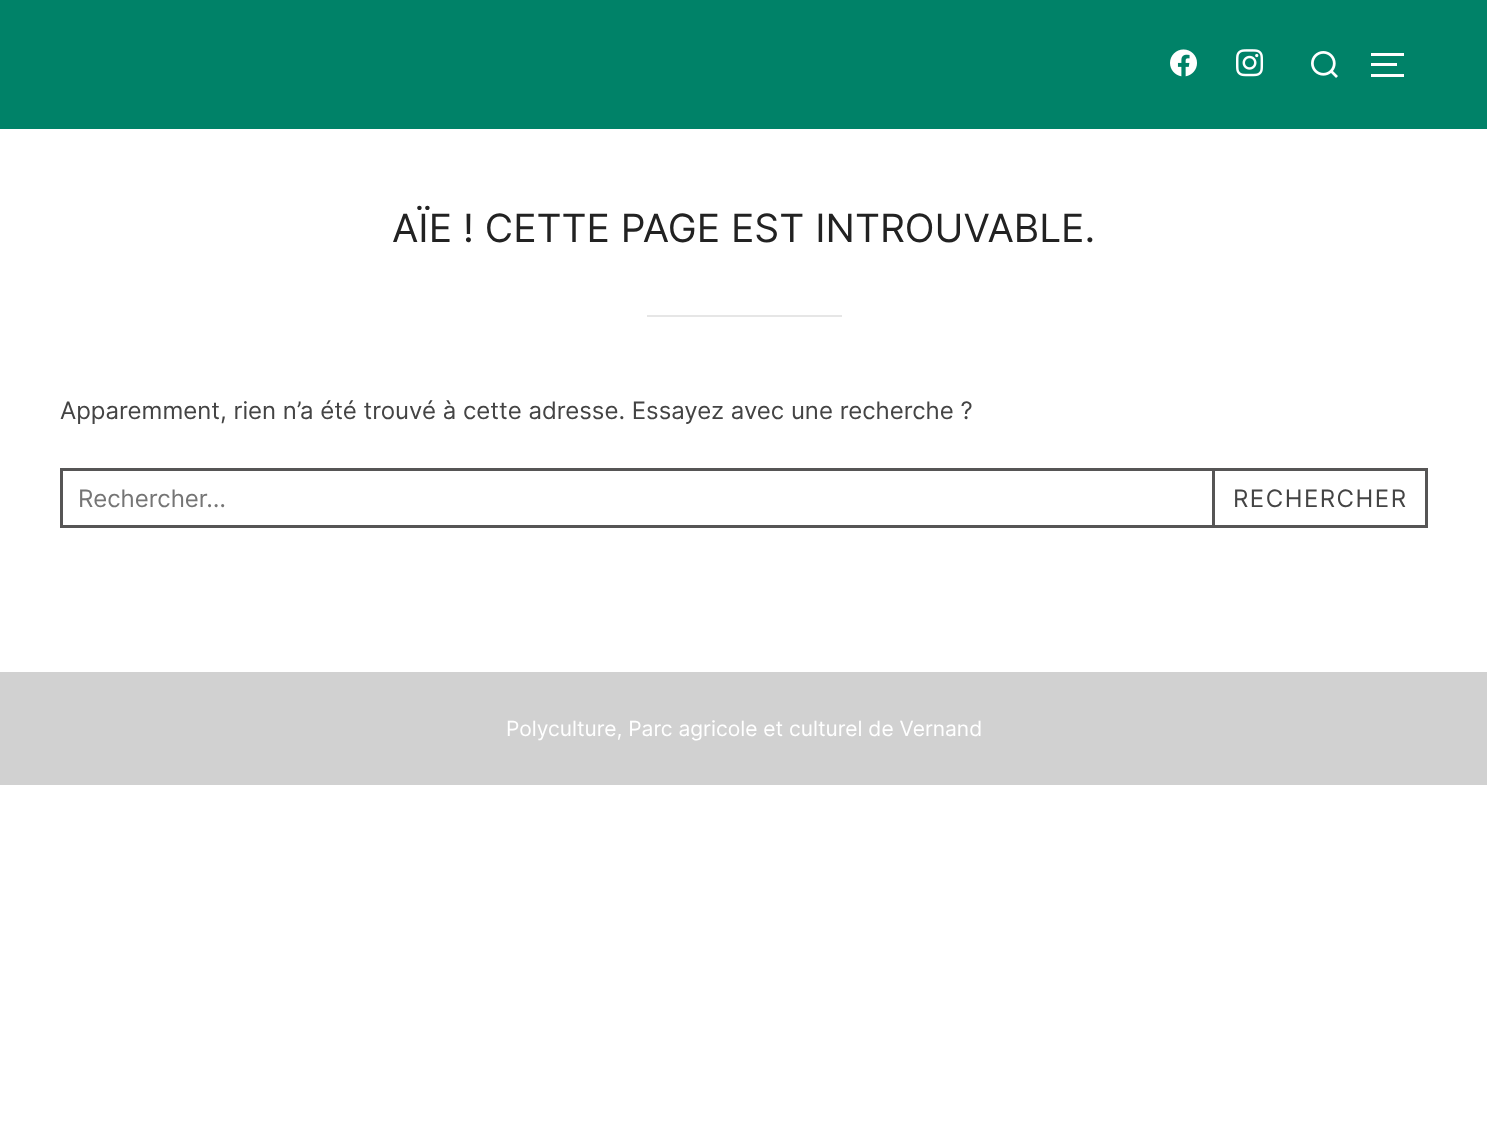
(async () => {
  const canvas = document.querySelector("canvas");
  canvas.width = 1487;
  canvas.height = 1121;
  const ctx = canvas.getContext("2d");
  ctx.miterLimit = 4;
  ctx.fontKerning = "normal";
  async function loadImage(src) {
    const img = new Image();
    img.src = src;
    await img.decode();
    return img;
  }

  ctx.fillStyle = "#ffffff";
  ctx.fillRect(0, 0, 1487, 1121);
  ctx.fillStyle = "#008268";
  ctx.fillRect(0, 0, 1487, 129);
  ctx.drawImage(await loadImage("img/1.png"), 1170, 49, 27, 28);
  ctx.drawImage(await loadImage("img/2.png"), 1236, 49, 28, 28);
  ctx.drawImage(await loadImage("img/3.png"), 1311, 51, 27, 27);
  for (const [x, y, w, h, color] of [
    [1371, 53, 33, 3, "#ffffff"],
    [1371, 63, 26, 3, "#ffffff"],
    [1371, 74, 33, 3, "#ffffff"],
    [647, 315, 195, 2, "#e6e6e6"],
  ]) {
    ctx.fillStyle = color;
    ctx.fillRect(x, y, w, h);
  }
  ctx.strokeStyle = "#565555";
  ctx.lineWidth = 3;
  ctx.strokeRect(61.5, 469.5, 1365, 57);
  ctx.strokeRect(1213.5, 469.5, 213, 57);
  ctx.fillStyle = "#d1d1d1";
  ctx.fillRect(0, 672, 1487, 113);
  ctx.font = "39px Inter";
  ctx.fillStyle = "#222222";
  ctx.fillText("AÏE ! CETTE PAGE EST INTROUVABLE.", 392, 242);
  ctx.font = "24px Inter";
  ctx.fillStyle = "#444444";
  ctx.fillText("Apparemment, rien n’a été trouvé à cette adresse. Essayez avec une recherche ?", 60, 419);
  ctx.fillStyle = "#757575";
  ctx.fillText("Rechercher…", 78, 507);
  ctx.letterSpacing = "1.5px";
  ctx.fillStyle = "#444444";
  ctx.fillText("RECHERCHER", 1233, 507);
  ctx.letterSpacing = "0px";
  ctx.font = "21px Inter";
  ctx.fillStyle = "#ffffff";
  ctx.fillText("Polyculture, Parc agricole et culturel de Vernand", 506, 736);
})();
